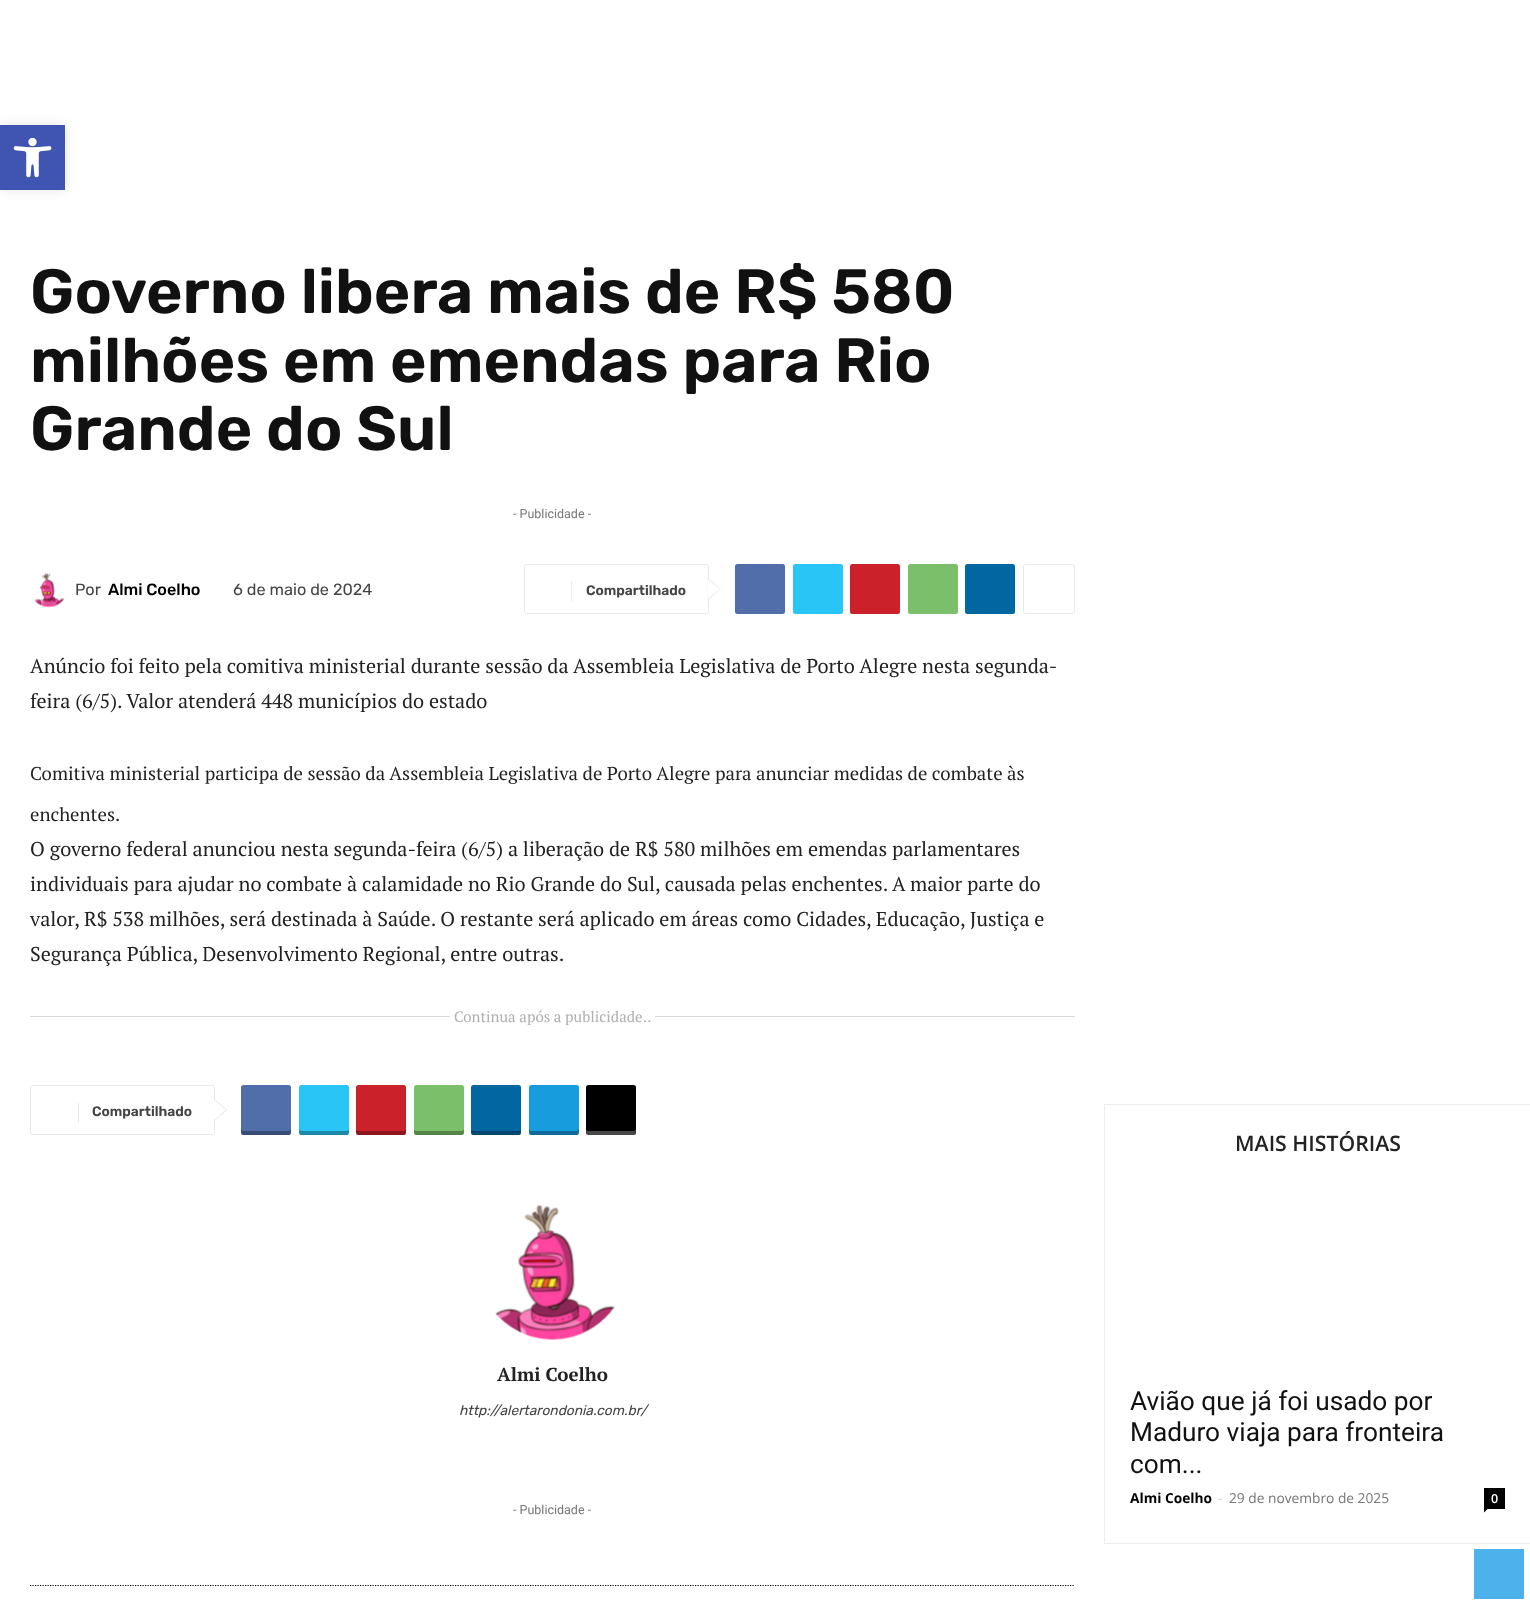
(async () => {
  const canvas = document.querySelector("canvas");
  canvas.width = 1530;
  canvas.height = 1603;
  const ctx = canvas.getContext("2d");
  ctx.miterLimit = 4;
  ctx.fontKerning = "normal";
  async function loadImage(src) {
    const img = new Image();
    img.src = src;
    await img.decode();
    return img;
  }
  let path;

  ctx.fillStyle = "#ffffff";
  ctx.fillRect(0, 0, 1530, 1603);
  ctx.fillStyle = "rgba(0, 0, 0, 0.1)";
  ctx.filter = "blur(6px)";
  ctx.beginPath();
  ctx.rect(0, 125, 65, 65);
  ctx.fill();
  ctx.filter = "none";
  ctx.fillStyle = "#4054b2";
  ctx.fillRect(0, 125, 65, 65);
  ctx.drawImage(await loadImage("img/1.png"), 13, 138, 39, 40);
  ctx.drawImage(await loadImage("img/2.png"), 34, 573, 31, 35);
  ctx.beginPath();
  ctx.roundRect(524.5, 564.5, 184, 49, 2);
  ctx.strokeStyle = "#e9e9e9";
  ctx.stroke();
  ctx.fillStyle = "#e9e9e9";
  path = new Path2D("M707.5 600V577.5L721 589Z");
  ctx.fill(path);
  ctx.fillStyle = "#ebebeb";
  ctx.fillRect(571, 581, 1, 20);
  ctx.fillStyle = "#ffffff";
  path = new Path2D("M707.5 599V579L720 589Z");
  ctx.fill(path);
  ctx.fillStyle = "#516eab";
  ctx.beginPath();
  ctx.roundRect(735, 564, 50, 50, 2.5);
  ctx.fill();
  ctx.fillStyle = "#29c5f6";
  ctx.beginPath();
  ctx.roundRect(793, 564, 50, 50, 2.5);
  ctx.fill();
  ctx.fillStyle = "#ca212a";
  ctx.beginPath();
  ctx.roundRect(850, 564, 50, 50, 2.5);
  ctx.fill();
  ctx.fillStyle = "#7bbf6a";
  ctx.beginPath();
  ctx.roundRect(908, 564, 50, 50, 2.5);
  ctx.fill();
  ctx.fillStyle = "#0266a0";
  ctx.beginPath();
  ctx.roundRect(965, 564, 50, 50, 2.5);
  ctx.fill();
  ctx.beginPath();
  ctx.roundRect(1023.5, 564.5, 51, 49, 2);
  ctx.stroke();
  ctx.fillStyle = "#d9d9d9";
  ctx.fillRect(30, 1016, 420, 1);
  ctx.fillRect(655, 1016, 420, 1);
  ctx.beginPath();
  ctx.roundRect(30.5, 1085.5, 184, 49, 2);
  ctx.stroke();
  ctx.fillStyle = "#e9e9e9";
  path = new Path2D("M214 1121V1099L227.5 1110Z");
  ctx.fill(path);
  ctx.fillStyle = "#ebebeb";
  ctx.fillRect(78, 1103, 1, 20);
  ctx.fillStyle = "#ffffff";
  path = new Path2D("M214 1120V1100L226 1110Z");
  ctx.fill(path);
  ctx.fillStyle = "#516eab";
  ctx.beginPath();
  ctx.roundRect(241, 1085, 50, 50, 2.5);
  ctx.fill();
  ctx.save();
  ctx.beginPath();
  ctx.rect(241, 1085, 50, 50);
  ctx.clip();
  ctx.fillStyle = "rgba(0, 0, 0, 0.31)";
  path = new Path2D("M241 1129C241 1137 242 1135 251 1135H281C290 1135 291 1137 291 1129C291 1130 290 1131 289 1131H244C242 1131 241 1130 241 1129Z");
  ctx.fill(path);
  ctx.restore();
  ctx.fillStyle = "#29c5f6";
  ctx.beginPath();
  ctx.roundRect(299, 1085, 50, 50, 2.5);
  ctx.fill();
  ctx.save();
  ctx.beginPath();
  ctx.rect(299, 1085, 50, 50);
  ctx.clip();
  ctx.fillStyle = "rgba(0, 0, 0, 0.31)";
  path = new Path2D("M299 1129C299 1137 300 1135 309 1135H339C348 1135 349 1137 349 1129C349 1130 348 1131 346 1131H301C300 1131 299 1130 299 1129Z");
  ctx.fill(path);
  ctx.restore();
  ctx.fillStyle = "#ca212a";
  ctx.beginPath();
  ctx.roundRect(356, 1085, 50, 50, 2.5);
  ctx.fill();
  ctx.save();
  ctx.beginPath();
  ctx.rect(356, 1085, 50, 50);
  ctx.clip();
  ctx.fillStyle = "rgba(0, 0, 0, 0.31)";
  path = new Path2D("M356 1129C356 1137 357 1135 366 1135H396C405 1135 406 1137 406 1129C406 1130 405 1131 404 1131H359C357 1131 356 1130 356 1129Z");
  ctx.fill(path);
  ctx.restore();
  ctx.fillStyle = "#7bbf6a";
  ctx.beginPath();
  ctx.roundRect(414, 1085, 50, 50, 2.5);
  ctx.fill();
  ctx.save();
  ctx.beginPath();
  ctx.rect(414, 1085, 50, 50);
  ctx.clip();
  ctx.fillStyle = "rgba(0, 0, 0, 0.31)";
  path = new Path2D("M414 1129C414 1137 415 1135 424 1135H454C463 1135 464 1137 464 1129C464 1130 463 1131 461 1131H416C415 1131 414 1130 414 1129Z");
  ctx.fill(path);
  ctx.restore();
  ctx.fillStyle = "#0266a0";
  ctx.beginPath();
  ctx.roundRect(471, 1085, 50, 50, 2.5);
  ctx.fill();
  ctx.save();
  ctx.beginPath();
  ctx.rect(471, 1085, 50, 50);
  ctx.clip();
  ctx.fillStyle = "rgba(0, 0, 0, 0.31)";
  path = new Path2D("M471 1129C471 1137 472 1135 481 1135H511C520 1135 521 1137 521 1129C521 1130 520 1131 519 1131H474C472 1131 471 1130 471 1129Z");
  ctx.fill(path);
  ctx.restore();
  ctx.fillStyle = "#179cde";
  ctx.beginPath();
  ctx.roundRect(529, 1085, 50, 50, 2.5);
  ctx.fill();
  ctx.save();
  ctx.beginPath();
  ctx.rect(529, 1085, 50, 50);
  ctx.clip();
  ctx.fillStyle = "rgba(0, 0, 0, 0.31)";
  path = new Path2D("M529 1129C529 1137 530 1135 539 1135H569C578 1135 579 1137 579 1129C579 1130 578 1131 576 1131H531C530 1131 529 1130 529 1129Z");
  ctx.fill(path);
  ctx.restore();
  ctx.fillStyle = "#000000";
  ctx.beginPath();
  ctx.roundRect(586, 1085, 50, 50, 2.5);
  ctx.fill();
  ctx.fillStyle = "rgba(255, 255, 255, 0.28)";
  path = new Path2D("M586 1129C586 1137 587 1135 596 1135H626C635 1135 636 1137 636 1129C636 1130 635 1131 634 1131H589C587 1131 586 1130 586 1129Z");
  ctx.fill(path);
  ctx.drawImage(await loadImage("img/3.png"), 495, 1205, 120, 135);
  path = new Path2D("M30 1585.5H1075");
  ctx.strokeStyle = "#0a0a0a";
  ctx.lineWidth = 1.2;
  ctx.setLineDash([1.25, 1.25]);
  ctx.stroke(path);
  for (const [x, y, w, h, color] of [
    [1104, 1104, 426, 1, "#ededed"],
    [1104, 1543, 426, 1, "#ededed"],
    [1104, 1104, 1, 440, "#ededed"],
    [1484, 1488, 21, 21, "#000000"],
  ]) {
    ctx.fillStyle = color;
    ctx.fillRect(x, y, w, h);
  }
  path = new Path2D("M1484 1509H1487.5L1484 1512.5Z");
  ctx.fill(path);
  ctx.fillStyle = "#4db2ec";
  ctx.fillRect(1474, 1549, 50, 50);
  ctx.font = "600 62.5px Rubik";
  ctx.fillStyle = "#111111";
  for (const [text, x, y] of [
    ["Governo libera mais de R$ 580", 30, 313],
    ["milhões em emendas para Rio", 30, 382],
    ["Grande do Sul", 30, 450],
  ]) {
    ctx.fillText(text, x, y);
  }
  ctx.font = "12.5px Roboto";
  ctx.fillStyle = "#767676";
  ctx.fillText("- Publicidade -", 513, 518);
  ctx.font = "16.25px Rubik";
  ctx.fillStyle = "#444444";
  ctx.fillText("Por", 75, 595);
  ctx.font = "500 16.25px Rubik";
  ctx.fillStyle = "#000000";
  ctx.fillText("Almi Coelho", 108, 595);
  ctx.font = "16.25px Rubik";
  ctx.fillStyle = "#444444";
  ctx.fillText("6 de maio de 2024", 233, 595);
  ctx.font = "600 13.75px Rubik";
  ctx.fillText("Compartilhado", 586, 595);
  ctx.font = "20px PT Serif";
  ctx.fillStyle = "#222222";
  ctx.fillText("Anúncio foi feito pela comitiva ministerial durante sessão da Assembleia Legislativa de Porto Alegre nesta segunda-", 30, 673);
  ctx.fillText("feira (6/5). Valor atenderá 448 municípios do estado", 30, 708);
  ctx.font = "18.67px PT Serif";
  ctx.fillText("Comitiva ministerial participa de sessão da Assembleia Legislativa de Porto Alegre para anunciar medidas de combate às", 30, 780);
  ctx.fillText("enchentes.", 30, 821);
  ctx.font = "20px PT Serif";
  for (const [text, x, y] of [
    ["O governo federal anunciou nesta segunda-feira (6/5) a liberação de R$ 580 milhões em emendas parlamentares", 30, 856],
    ["individuais para ajudar no combate à calamidade no Rio Grande do Sul, causada pelas enchentes. A maior parte do", 30, 891],
    ["valor, R$ 538 milhões, será destinada à Saúde. O restante será aplicado em áreas como Cidades, Educação, Justiça e", 30, 926],
    ["Segurança Pública, Desenvolvimento Regional, entre outras.", 30, 961],
  ]) {
    ctx.fillText(text, x, y);
  }
  ctx.font = "15px PT Serif";
  ctx.fillStyle = "#b0b0b0";
  ctx.fillText("Continua após a publicidade..", 454, 1022);
  ctx.font = "600 13.75px Rubik";
  ctx.fillStyle = "#444444";
  ctx.fillText("Compartilhado", 92, 1116);
  ctx.font = "bold 18.75px PT Serif";
  ctx.fillStyle = "#222222";
  ctx.fillText("Almi Coelho", 497, 1381);
  ctx.font = "italic 13.75px Rubik";
  ctx.fillStyle = "#444444";
  ctx.fillText("http://alertarondonia.com.br/", 459, 1415);
  ctx.font = "12.5px Roboto";
  ctx.fillStyle = "#767676";
  ctx.fillText("- Publicidade -", 513, 1514);
  ctx.font = "600 21.25px Open Sans";
  ctx.fillStyle = "#222222";
  ctx.fillText("MAIS HISTÓRIAS", 1235, 1151);
  ctx.font = "26.25px Roboto";
  ctx.fillStyle = "#111111";
  for (const [text, x, y] of [
    ["Avião que já foi usado por", 1130, 1410],
    ["Maduro viaja para fronteira", 1130, 1441],
    ["com...", 1130, 1473],
  ]) {
    ctx.fillText(text, x, y);
  }
  ctx.font = "bold 13.75px Open Sans";
  ctx.fillStyle = "#000000";
  ctx.fillText("Almi Coelho", 1130, 1503);
  ctx.font = "13.75px Open Sans";
  ctx.fillStyle = "#cccccc";
  ctx.fillText("-", 1218, 1503);
  ctx.fillStyle = "#767676";
  ctx.fillText("29 de novembro de 2025", 1229, 1503);
  ctx.font = "600 12.5px Open Sans";
  ctx.fillStyle = "#ffffff";
  ctx.fillText("0", 1491, 1503);
})();
